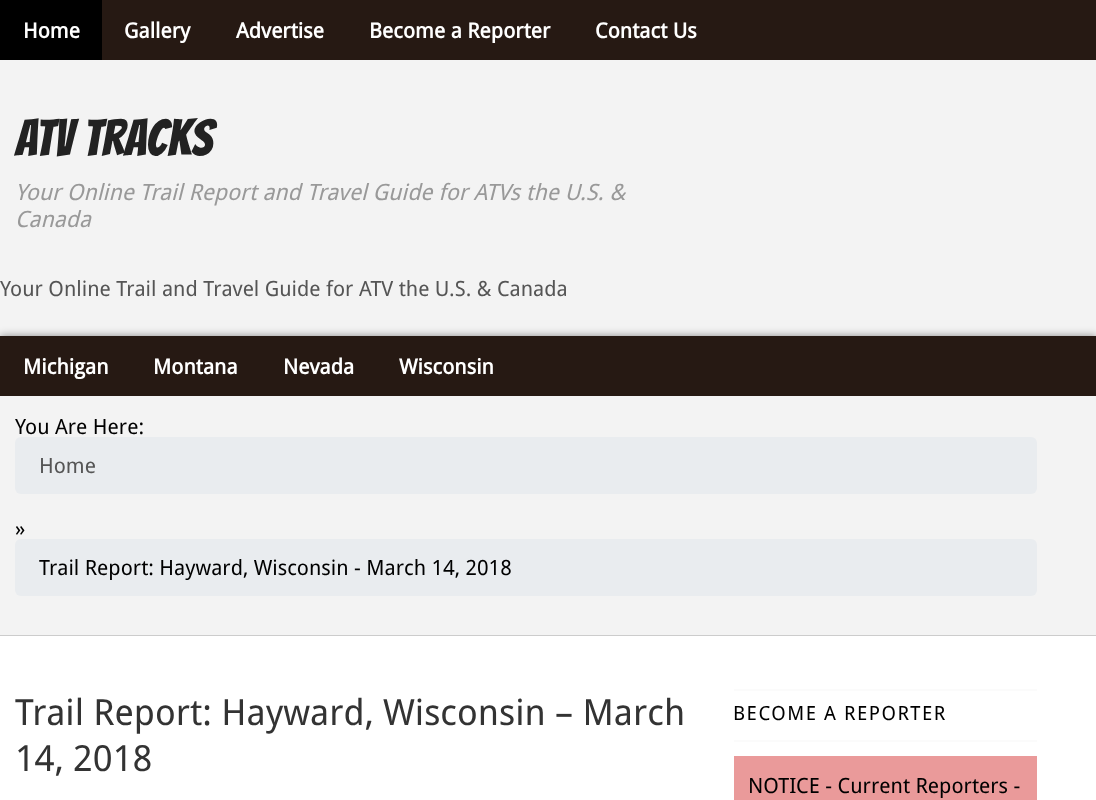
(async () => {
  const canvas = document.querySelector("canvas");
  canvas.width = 1096;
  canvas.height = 800;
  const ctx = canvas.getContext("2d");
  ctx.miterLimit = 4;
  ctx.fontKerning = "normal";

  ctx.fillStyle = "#261913";
  ctx.fillRect(0, 0, 1096, 800);
  ctx.fillStyle = "#000000";
  ctx.fillRect(0, 0, 102, 60);
  ctx.fillStyle = "#f3f3f3";
  ctx.fillRect(0, 60, 1096, 276);
  ctx.fillStyle = "rgba(0, 0, 0, 0.44)";
  ctx.filter = "blur(4px)";
  ctx.beginPath();
  ctx.rect(0, 336, 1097, 60);
  ctx.fill();
  ctx.filter = "none";
  for (const [x, y, w, h, color] of [
    [0, 336, 1096, 60, "#261913"],
    [0, 396, 1096, 239, "#f3f3f3"],
    [0, 635, 1096, 1, "#cccccc"],
  ]) {
    ctx.fillStyle = color;
    ctx.fillRect(x, y, w, h);
  }
  ctx.fillStyle = "#e9ecef";
  ctx.beginPath();
  ctx.roundRect(15, 437, 1022, 57, 6);
  ctx.fill();
  ctx.beginPath();
  ctx.roundRect(15, 539, 1022, 57, 6);
  ctx.fill();
  for (const [x, y, w, h, color] of [
    [0, 636, 1096, 164, "#ffffff"],
    [734, 689, 303, 2, "#fbfbfb"],
    [734, 740, 303, 2, "#fbfbfb"],
    [734, 756, 303, 44, "#ea9a9a"],
  ]) {
    ctx.fillStyle = color;
    ctx.fillRect(x, y, w, h);
  }
  ctx.font = "bold 21px Droid Sans";
  ctx.fillStyle = "#ffffff";
  for (const [text, x, y] of [
    ["Home", 23, 38],
    ["Gallery", 124, 38],
    ["Advertise", 236, 38],
    ["Become a Reporter", 369, 38],
    ["Contact Us", 595, 38],
  ]) {
    ctx.fillText(text, x, y);
  }
  ctx.font = "51px Bangers";
  ctx.fillStyle = "#222222";
  ctx.fillText("ATV Tracks", 15, 156);
  ctx.font = "italic 22.5px Droid Sans";
  ctx.fillStyle = "#999999";
  ctx.fillText("Your Online Trail Report and Travel Guide for ATVs the U.S. &", 15, 200);
  ctx.fillText("Canada", 15, 227);
  ctx.font = "21px Droid Sans";
  ctx.fillStyle = "#555555";
  ctx.fillText("Your Online Trail and Travel Guide for ATV the U.S. & Canada", 0, 296);
  ctx.font = "bold 21px Droid Sans";
  ctx.fillStyle = "#ffffff";
  for (const [text, x, y] of [
    ["Michigan", 23, 374],
    ["Montana", 153, 374],
    ["Nevada", 283, 374],
    ["Wisconsin", 399, 374],
  ]) {
    ctx.fillText(text, x, y);
  }
  ctx.font = "21px Droid Sans";
  ctx.fillStyle = "#000000";
  ctx.fillText("You Are Here:", 15, 434);
  ctx.fillStyle = "#555555";
  ctx.fillText("Home", 39, 473);
  ctx.fillStyle = "#000000";
  ctx.fillText("»", 15, 536);
  ctx.fillText("Trail Report: Hayward, Wisconsin - March 14, 2018", 39, 575);
  ctx.font = "36px Droid Sans";
  ctx.fillStyle = "#333333";
  ctx.fillText("Trail Report: Hayward, Wisconsin – March", 15, 725);
  ctx.fillText("14, 2018", 15, 771);
  ctx.letterSpacing = "1.5px";
  ctx.font = "19.5px Droid Sans";
  ctx.fillStyle = "#000000";
  ctx.fillText("BECOME A REPORTER", 733, 720);
  ctx.letterSpacing = "0px";
  ctx.font = "21px Droid Sans";
  ctx.fillText("NOTICE - Current Reporters -", 748, 793);
})();
